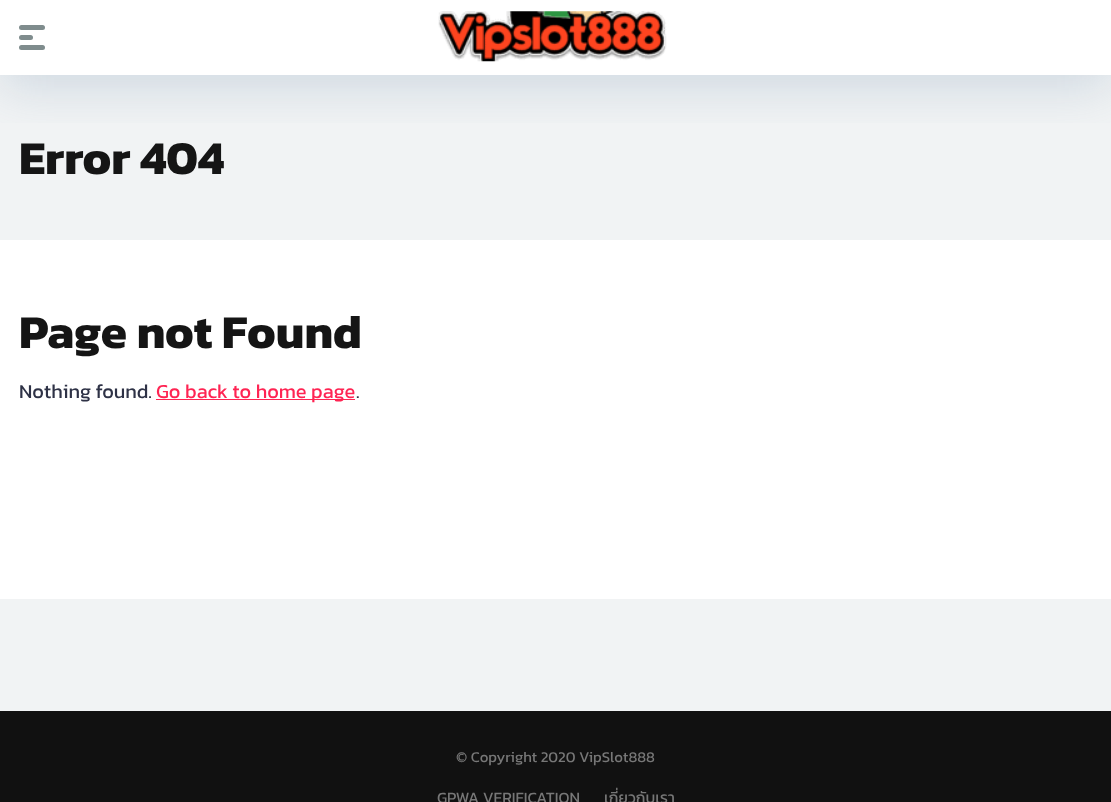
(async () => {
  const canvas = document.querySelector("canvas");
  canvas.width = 1111;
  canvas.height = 802;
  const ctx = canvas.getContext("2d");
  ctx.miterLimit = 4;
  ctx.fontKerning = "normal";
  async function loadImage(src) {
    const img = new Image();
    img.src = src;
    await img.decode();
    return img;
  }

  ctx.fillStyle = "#ffffff";
  ctx.fillRect(0, 0, 1111, 802);
  ctx.fillStyle = "#f1f3f4";
  ctx.fillRect(0, 75, 1111, 165);
  ctx.save();
  ctx.beginPath();
  ctx.rect(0, 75, 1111, 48);
  ctx.clip();
  ctx.fillStyle = "rgba(109, 141, 173, 0.25)";
  ctx.filter = "blur(25px)";
  ctx.beginPath();
  ctx.rect(0, 13, 1111, 75);
  ctx.fill();
  ctx.filter = "none";
  ctx.restore();
  ctx.fillStyle = "#7f8c8d";
  ctx.beginPath();
  ctx.roundRect(19, 25, 26, 5, 2.5);
  ctx.fill();
  ctx.beginPath();
  ctx.roundRect(19, 35, 14, 5, 2.5);
  ctx.fill();
  ctx.beginPath();
  ctx.roundRect(19, 45, 26, 5, 2.5);
  ctx.fill();
  ctx.drawImage(await loadImage("img/1.png"), 438, 11, 229, 51);
  for (const [x, y, w, h, color] of [
    [156, 399, 199, 1, "#ff2453"],
    [0, 599, 1111, 112, "#f1f3f4"],
    [0, 711, 1111, 91, "#111111"],
  ]) {
    ctx.fillStyle = color;
    ctx.fillRect(x, y, w, h);
  }
  ctx.font = "bold 47.5px Kanit";
  ctx.fillStyle = "#151515";
  ctx.fillText("Error 404", 19, 174);
  ctx.fillText("Page not Found", 19, 348);
  ctx.font = "20px Kanit";
  ctx.fillStyle = "#2e3246";
  ctx.fillText("Nothing found.", 19, 398);
  ctx.fillStyle = "#ff2453";
  ctx.fillText("Go back to home page", 156, 398);
  ctx.fillStyle = "#2e3246";
  ctx.fillText(".", 356, 398);
  ctx.font = "15px Kanit";
  ctx.fillStyle = "#777777";
  ctx.fillText("© Copyright 2020 VipSlot888", 456, 762);
  ctx.font = "15.75px Kanit";
  ctx.fillText("GPWA VERIFICATION", 437, 803);
  ctx.fillText("เกี่ยวกับเรา", 604, 803);
})();
